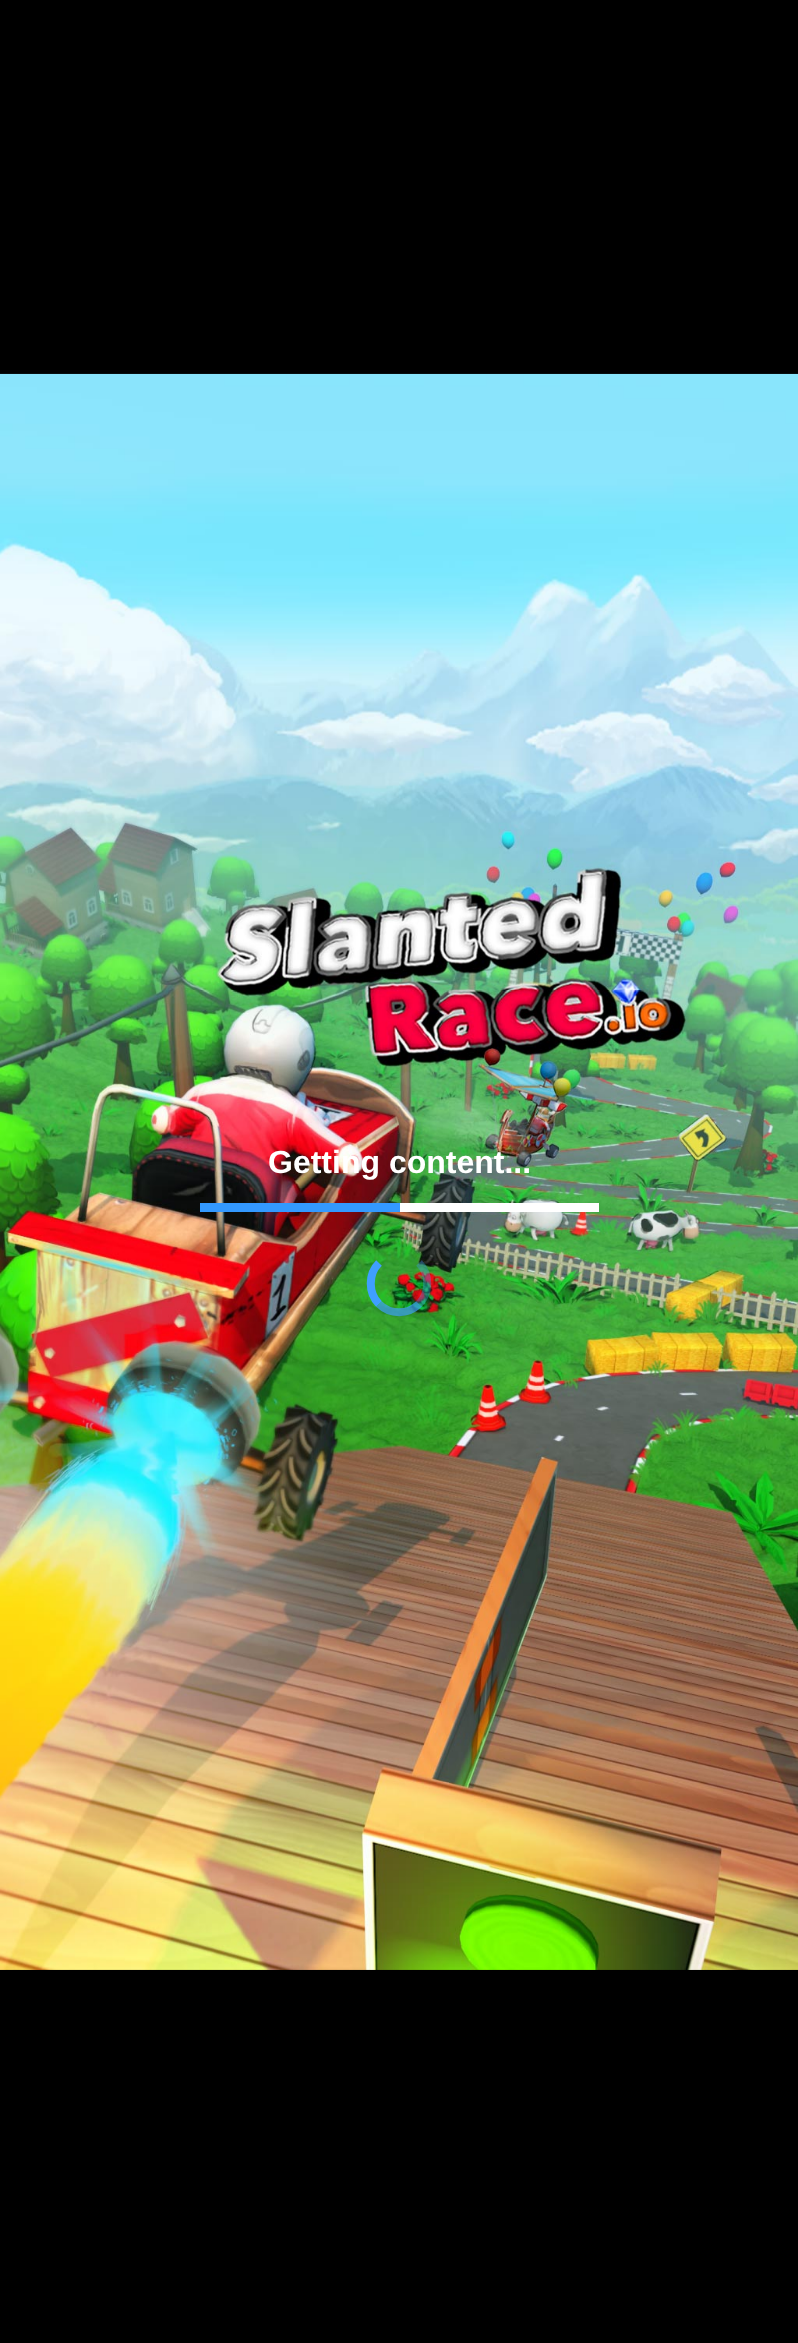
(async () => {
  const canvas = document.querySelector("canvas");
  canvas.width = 798;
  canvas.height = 2343;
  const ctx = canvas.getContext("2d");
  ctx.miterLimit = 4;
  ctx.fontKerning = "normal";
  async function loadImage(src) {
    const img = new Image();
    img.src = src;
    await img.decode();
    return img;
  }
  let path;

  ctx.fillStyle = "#000000";
  ctx.fillRect(0, 0, 798, 2343);
  ctx.drawImage(await loadImage("img/1.png"), 0, 373, 798, 1597);
  ctx.fillStyle = "#ffffff";
  ctx.fillRect(400, 1203, 199, 9);
  ctx.fillStyle = "#3399ff";
  ctx.fillRect(200, 1203, 200, 9);
  path = new Path2D("M419 1263C430 1274 430 1293 419 1304");
  ctx.strokeStyle = "rgba(63, 159, 255, 0.33)";
  ctx.lineWidth = 8;
  ctx.stroke(path);
  path = new Path2D("M419 1304C408 1315 390 1315 379 1304");
  ctx.strokeStyle = "rgba(63, 159, 255, 0.67)";
  ctx.stroke(path);
  path = new Path2D("M379 1304C368 1293 368 1274 379 1263");
  ctx.strokeStyle = "#3f9fff";
  ctx.stroke(path);
  ctx.font = "bold 32px Liberation Sans";
  ctx.fillStyle = "#ffffff";
  ctx.fillText("Getting content...", 268, 1173);
})();
